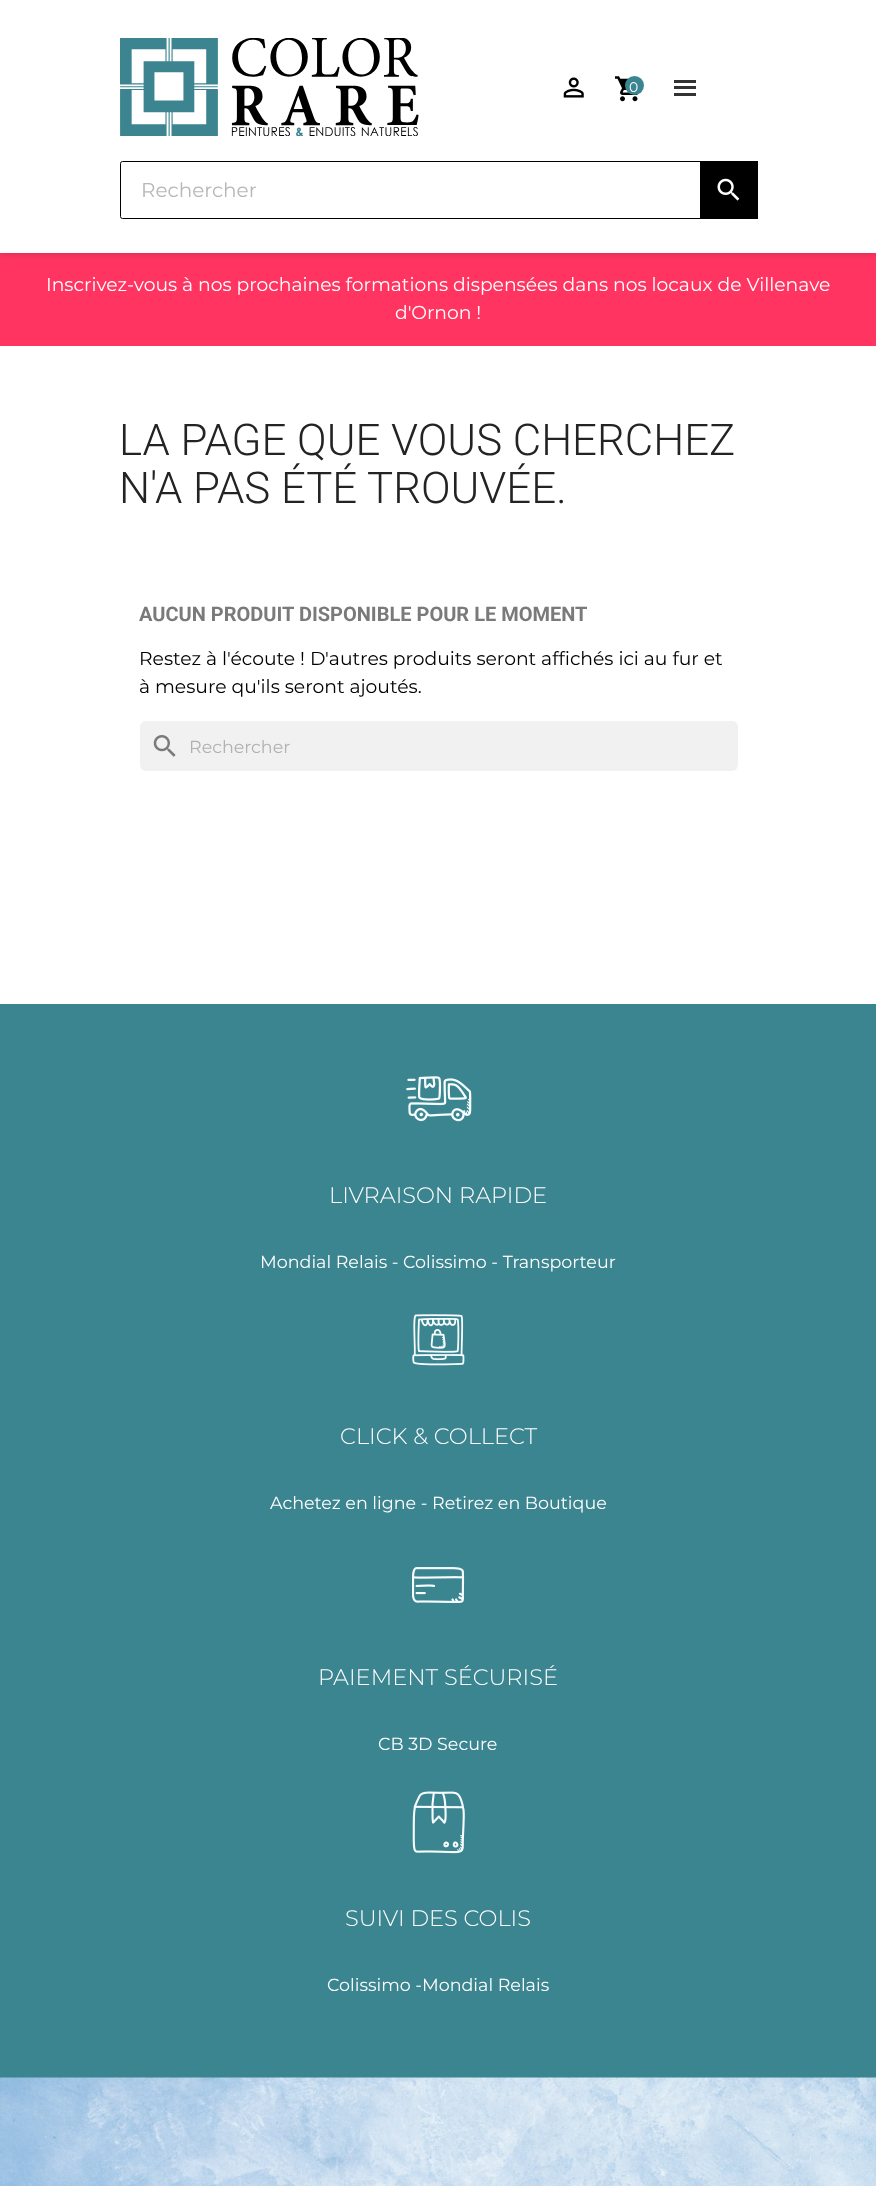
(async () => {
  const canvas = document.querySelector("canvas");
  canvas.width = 876;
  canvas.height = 2186;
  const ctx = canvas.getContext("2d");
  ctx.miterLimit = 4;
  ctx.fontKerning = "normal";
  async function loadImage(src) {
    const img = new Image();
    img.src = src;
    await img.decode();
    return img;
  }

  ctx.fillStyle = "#ffffff";
  ctx.fillRect(0, 0, 876, 2186);
  ctx.fillStyle = "#ff3461";
  ctx.fillRect(0, 253, 876, 93);
  ctx.fillStyle = "rgba(0, 0, 0, 0.11)";
  ctx.filter = "blur(3px)";
  ctx.beginPath();
  ctx.rect(0, 3, 876, 252);
  ctx.fill();
  ctx.filter = "none";
  ctx.fillStyle = "#ffffff";
  ctx.fillRect(0, 0, 876, 253);
  ctx.drawImage(await loadImage("img/1.png"), 120, 38, 299, 98);
  ctx.drawImage(await loadImage("img/2.png"), 563, 77, 21, 21);
  ctx.drawImage(await loadImage("img/3.png"), 615, 76, 23, 26);
  ctx.fillStyle = "#3b8590";
  ctx.beginPath();
  ctx.arc(634.5, 85.5, 9.5, 0, Math.PI * 2);
  ctx.fill();
  for (const [x, y, w, h, color] of [
    [674, 80, 22, 3, "#333333"],
    [674, 86, 22, 3, "#333333"],
    [674, 93, 22, 3, "#333333"],
  ]) {
    ctx.fillStyle = color;
    ctx.fillRect(x, y, w, h);
  }
  ctx.beginPath();
  ctx.roundRect(120.5, 161.5, 637, 57, 2);
  ctx.strokeStyle = "#000000";
  ctx.stroke();
  ctx.fillStyle = "#000000";
  ctx.fillRect(700, 161, 58, 58);
  ctx.drawImage(await loadImage("img/4.png"), 717, 178, 23, 23);
  ctx.fillStyle = "#f1f1f1";
  ctx.beginPath();
  ctx.roundRect(140, 721, 598, 50, 6);
  ctx.fill();
  ctx.drawImage(await loadImage("img/5.png"), 153, 735, 23, 22);
  ctx.fillStyle = "#3b8590";
  ctx.fillRect(0, 1004, 876, 1074);
  ctx.drawImage(await loadImage("img/6.png"), 406, 1076, 66, 46);
  ctx.drawImage(await loadImage("img/7.png"), 412, 1314, 53, 52);
  ctx.drawImage(await loadImage("img/8.png"), 412, 1567, 53, 36);
  ctx.drawImage(await loadImage("img/9.png"), 412, 1791, 53, 63);
  ctx.drawImage(await loadImage("img/10.png"), 0, 2077, 876, 109);
  ctx.font = "14px Montserrat";
  ctx.fillStyle = "#ffffff";
  ctx.fillText("0", 629, 92);
  ctx.font = "20px Montserrat";
  ctx.fillStyle = "#b7b7b7";
  ctx.fillText("Rechercher", 141, 197);
  ctx.font = "18.75px Montserrat";
  ctx.fillStyle = "#ffffff";
  ctx.fillText("Inscrivez-vous à nos prochaines formations dispensées dans nos locaux de Villenave", 46, 291);
  ctx.fillText("d'Ornon !", 395, 319);
  ctx.font = "300 43.75px Roboto";
  ctx.fillStyle = "#232323";
  ctx.fillText("LA PAGE QUE VOUS CHERCHEZ", 119, 455);
  ctx.fillText("N'A PAS ÉTÉ TROUVÉE.", 119, 503);
  ctx.font = "bold 20px Roboto";
  ctx.fillStyle = "#7a7a7a";
  ctx.fillText("AUCUN PRODUIT DISPONIBLE POUR LE MOMENT", 139, 621);
  ctx.font = "18.75px Montserrat";
  ctx.fillStyle = "#000000";
  ctx.fillText("Restez à l'écoute ! D'autres produits seront affichés ici au fur et", 139, 665);
  ctx.fillText("à mesure qu'ils seront ajoutés.", 139, 693);
  ctx.font = "17.5px Montserrat";
  ctx.fillStyle = "#b1b1b1";
  ctx.fillText("Rechercher", 189, 753);
  ctx.font = "300 22.5px Montserrat";
  ctx.fillStyle = "#ffffff";
  ctx.fillText("LIVRAISON RAPIDE", 329, 1203);
  ctx.font = "17.5px Montserrat";
  ctx.fillText("Mondial Relais - Colissimo - Transporteur", 260, 1268);
  ctx.font = "300 22.5px Montserrat";
  ctx.fillText("CLICK & COLLECT", 340, 1444);
  ctx.font = "17.5px Montserrat";
  ctx.fillText("Achetez en ligne - Retirez en Boutique", 270, 1509);
  ctx.font = "300 22.5px Montserrat";
  ctx.fillText("PAIEMENT SÉCURISÉ", 318, 1685);
  ctx.font = "17.5px Montserrat";
  ctx.fillText("CB 3D Secure", 378, 1750);
  ctx.font = "300 22.5px Montserrat";
  ctx.fillText("SUIVI DES COLIS", 345, 1926);
  ctx.font = "17.5px Montserrat";
  ctx.fillText("Colissimo -Mondial Relais", 327, 1991);
})();
